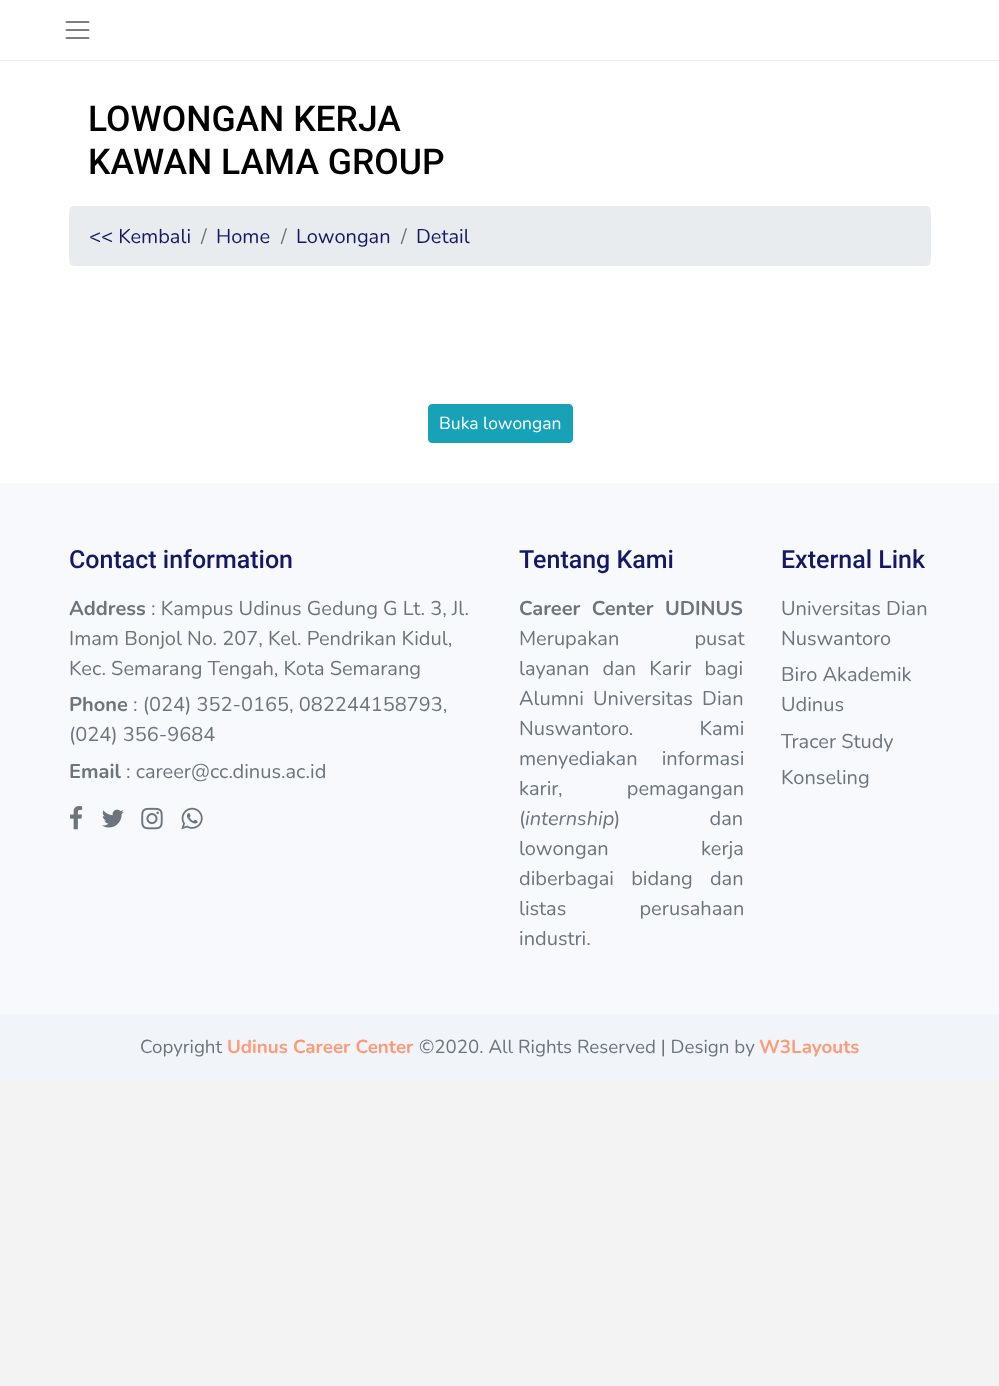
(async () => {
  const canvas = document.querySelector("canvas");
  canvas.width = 999;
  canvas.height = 1386;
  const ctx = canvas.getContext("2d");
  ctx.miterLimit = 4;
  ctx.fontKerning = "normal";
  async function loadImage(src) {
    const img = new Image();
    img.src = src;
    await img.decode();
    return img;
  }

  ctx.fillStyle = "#f3f3f3";
  ctx.fillRect(0, 0, 999, 1386);
  for (const [x, y, w, h, color] of [
    [0, 61, 999, 422, "#ffffff"],
    [0, 0, 999, 60, "#ffffff"],
    [0, 60, 999, 1, "#eeeeee"],
  ]) {
    ctx.fillStyle = color;
    ctx.fillRect(x, y, w, h);
  }
  ctx.drawImage(await loadImage("img/1.png"), 65, 21, 25, 18);
  ctx.fillStyle = "#e9ecef";
  ctx.beginPath();
  ctx.roundRect(69, 206, 862, 60, 5);
  ctx.fill();
  ctx.fillStyle = "#17a2b8";
  ctx.beginPath();
  ctx.roundRect(428.5, 404.5, 144, 38, 3.5);
  ctx.fill();
  ctx.strokeStyle = "#17a2b8";
  ctx.stroke();
  ctx.fillStyle = "#f7f9fd";
  ctx.fillRect(0, 483, 999, 531);
  ctx.drawImage(await loadImage("img/2.png"), 70, 806, 13, 24);
  ctx.drawImage(await loadImage("img/3.png"), 102, 809, 22, 19);
  ctx.drawImage(await loadImage("img/4.png"), 141, 807, 22, 23);
  ctx.drawImage(await loadImage("img/5.png"), 181, 807, 22, 23);
  ctx.fillStyle = "#f1f4f9";
  ctx.fillRect(0, 1014, 999, 65);
  ctx.font = "500 35.5px Roboto";
  ctx.fillStyle = "#000000";
  ctx.fillText("LOWONGAN KERJA", 88, 131);
  ctx.fillText("KAWAN LAMA GROUP", 88, 174);
  ctx.font = "20px Nunito";
  ctx.fillStyle = "#151965";
  ctx.fillText("<< Kembali", 89, 243);
  ctx.fillStyle = "#6c757d";
  ctx.fillText("/", 201, 243);
  ctx.fillStyle = "#151965";
  ctx.fillText("Home", 216, 243);
  ctx.fillStyle = "#6c757d";
  ctx.fillText("/", 281, 243);
  ctx.fillStyle = "#151965";
  ctx.fillText("Lowongan", 296, 243);
  ctx.fillStyle = "#6c757d";
  ctx.fillText("/", 401, 243);
  ctx.fillStyle = "#151965";
  ctx.fillText("Detail", 416, 243);
  ctx.font = "17.5px Nunito";
  ctx.fillStyle = "#ffffff";
  ctx.fillText("Buka lowongan", 439, 429);
  ctx.font = "500 25px Roboto";
  ctx.fillStyle = "#151965";
  ctx.fillText("Contact information", 69, 568);
  ctx.font = "bold 20px Nunito";
  ctx.fillStyle = "#6c757d";
  ctx.fillText("Address", 69, 615);
  ctx.font = "20px Nunito";
  for (const [text, x, y] of [
    [": Kampus Udinus Gedung G Lt. 3, Jl.", 151, 615],
    ["Imam Bonjol No. 207, Kel. Pendrikan Kidul,", 69, 645],
    ["Kec. Semarang Tengah, Kota Semarang", 69, 675],
  ]) {
    ctx.fillText(text, x, y);
  }
  ctx.font = "bold 20px Nunito";
  ctx.fillText("Phone", 69, 711);
  ctx.font = "20px Nunito";
  ctx.fillText(": (024) 352-0165, 082244158793,", 133, 711);
  ctx.fillText("(024) 356-9684", 69, 741);
  ctx.font = "bold 20px Nunito";
  ctx.fillText("Email", 69, 778);
  ctx.font = "20px Nunito";
  ctx.fillText(": career@cc.dinus.ac.id", 126, 778);
  ctx.font = "500 25px Roboto";
  ctx.fillStyle = "#151965";
  ctx.fillText("Tentang Kami", 519, 568);
  ctx.wordSpacing = "6px";
  ctx.font = "bold 20px Nunito";
  ctx.fillStyle = "#6c757d";
  ctx.fillText("Career Center UDINUS", 519, 615);
  ctx.wordSpacing = "70px";
  ctx.font = "20px Nunito";
  ctx.fillText("Merupakan pusat", 519, 645);
  ctx.wordSpacing = "8px";
  ctx.fillText("layanan dan Karir bagi", 519, 675);
  ctx.wordSpacing = "4px";
  ctx.fillText("Alumni Universitas Dian", 519, 705);
  ctx.wordSpacing = "61px";
  ctx.fillText("Nuswantoro. Kami", 519, 735);
  ctx.wordSpacing = "19px";
  ctx.fillText("menyediakan informasi", 519, 765);
  ctx.wordSpacing = "59px";
  ctx.fillText("karir, pemagangan", 519, 795);
  ctx.wordSpacing = "0px";
  ctx.fillText("(", 519, 825);
  ctx.font = "italic 20px Nunito";
  ctx.fillText("internship", 525, 825);
  ctx.wordSpacing = "84px";
  ctx.font = "20px Nunito";
  ctx.fillText(") dan", 614, 825);
  ctx.wordSpacing = "0px";
  ctx.fillText("lowongan", 519, 855);
  ctx.fillText("kerja", 701, 855);
  ctx.wordSpacing = "12px";
  ctx.fillText("diberbagai bidang dan", 519, 885);
  ctx.wordSpacing = "68px";
  ctx.fillText("listas perusahaan", 519, 915);
  ctx.wordSpacing = "0px";
  ctx.fillText("industri.", 519, 945);
  ctx.font = "500 25px Roboto";
  ctx.fillStyle = "#151965";
  ctx.fillText("External Link", 781, 568);
  ctx.font = "20px Nunito";
  ctx.fillStyle = "#6c757d";
  for (const [text, x, y] of [
    ["Universitas Dian", 781, 615],
    ["Nuswantoro", 781, 645],
    ["Biro Akademik", 781, 681],
    ["Udinus", 781, 711],
    ["Tracer Study", 781, 748],
    ["Konseling", 781, 784],
  ]) {
    ctx.fillText(text, x, y);
  }
  ctx.font = "18.75px Nunito";
  ctx.fillText("Copyright", 140, 1053);
  ctx.font = "bold 18.75px Nunito";
  ctx.fillStyle = "#fc9b77";
  ctx.fillText("Udinus Career Center", 227, 1053);
  ctx.font = "18.75px Nunito";
  ctx.fillStyle = "#6c757d";
  ctx.fillText("©2020. All Rights Reserved | Design by", 419, 1053);
  ctx.font = "bold 18.75px Nunito";
  ctx.fillStyle = "#fc9b77";
  ctx.fillText("W3Layouts", 759, 1053);
})();
